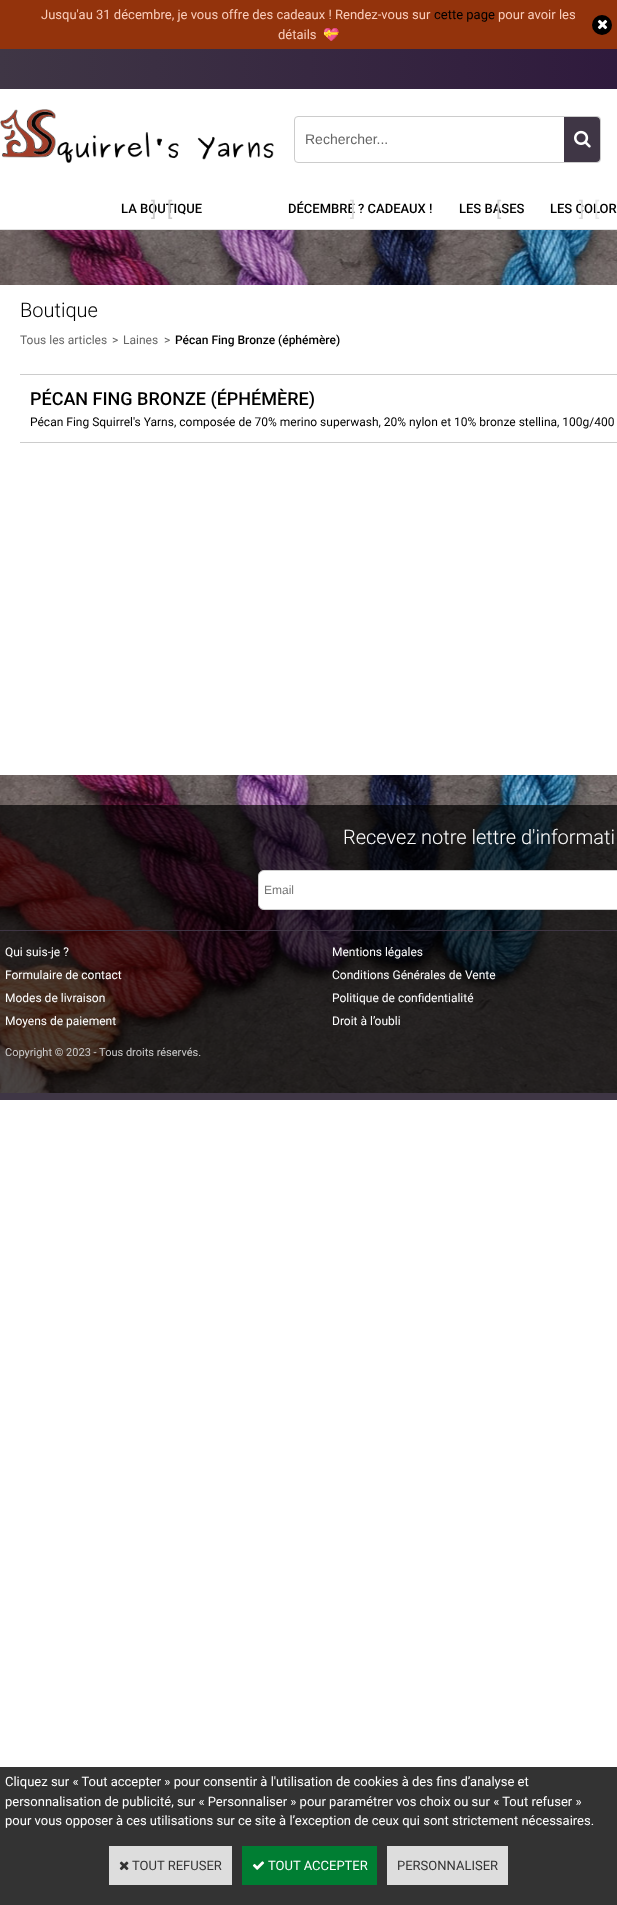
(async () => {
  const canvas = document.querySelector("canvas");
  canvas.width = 617;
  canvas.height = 1905;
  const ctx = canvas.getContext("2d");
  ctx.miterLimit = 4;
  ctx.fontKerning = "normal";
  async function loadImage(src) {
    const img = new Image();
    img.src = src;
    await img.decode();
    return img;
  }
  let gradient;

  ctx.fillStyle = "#ffffff";
  ctx.fillRect(0, 0, 617, 1905);
  ctx.drawImage(await loadImage("img/1.png"), 0, 230, 617, 55);
  ctx.fillStyle = "#93330c";
  ctx.fillRect(0, 0, 617, 49);
  ctx.fillStyle = "#000000";
  ctx.beginPath();
  ctx.arc(602, 25, 10, 0, Math.PI * 2);
  ctx.fill();
  ctx.drawImage(await loadImage("img/2.png"), 597, 19, 11, 11);
  ctx.drawImage(await loadImage("img/3.png"), 0, 775, 617, 318);
  gradient = ctx.createLinearGradient(617, 69, 0, 69);
  gradient.addColorStop(0, "#2f1a3d");
  gradient.addColorStop(1, "#3f3645");
  ctx.fillStyle = gradient;
  ctx.fillRect(0, 49, 617, 40);
  ctx.fillStyle = "#e2e2e2";
  ctx.fillRect(0, 229, 617, 1);
  ctx.drawImage(await loadImage("img/4.png"), 0, 109, 274, 54);
  ctx.beginPath();
  ctx.roundRect(294.5, 116.5, 306, 46, 3.5);
  ctx.strokeStyle = "#cccccc";
  ctx.stroke();
  ctx.fillStyle = "#3f3645";
  ctx.beginPath();
  ctx.roundRect(564, 117, 36, 45, [0, 4, 4, 0]);
  ctx.fill();
  ctx.drawImage(await loadImage("img/5.png"), 574, 130, 17, 18);
  for (const [x, y, w, h, color] of [
    [20, 374, 597, 1, "#cccccc"],
    [20, 442, 597, 1, "#cccccc"],
    [0, 805, 617, 288, "rgba(0, 0, 0, 0.7)"],
    [0, 1093, 617, 7, "#3f3645"],
    [0, 930, 617, 1, "#3f3645"],
  ]) {
    ctx.fillStyle = color;
    ctx.fillRect(x, y, w, h);
  }
  ctx.fillStyle = "#ffffff";
  ctx.beginPath();
  ctx.roundRect(258.5, 870.5, 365, 39, 5.5);
  ctx.fill();
  ctx.stroke();
  ctx.fillStyle = "#333333";
  ctx.fillRect(0, 1767, 617, 138);
  ctx.fillStyle = "#dddddd";
  ctx.fillRect(109, 1846, 123, 39);
  ctx.drawImage(await loadImage("img/6.png"), 119, 1861, 10, 10);
  ctx.fillStyle = "#007e33";
  ctx.fillRect(242, 1846, 135, 39);
  ctx.drawImage(await loadImage("img/7.png"), 252, 1861, 13, 9);
  ctx.fillStyle = "#dddddd";
  ctx.fillRect(387, 1846, 121, 39);
  ctx.font = "13px Roboto";
  ctx.fillStyle = "#fbcebc";
  ctx.fillText("Jusqu'au 31 décembre, je vous offre des cadeaux ! Rendez-vous sur", 41, 19);
  ctx.fillStyle = "#000000";
  ctx.fillText("cette page", 434, 19);
  ctx.fillStyle = "#fbcebc";
  ctx.fillText("pour avoir les", 498, 19);
  ctx.fillText("détails", 278, 39);
  ctx.font = "13px Noto Color Emoji";
  ctx.fillText("💝", 323, 39);
  ctx.font = "14px Liberation Sans";
  ctx.fillStyle = "#666666";
  ctx.fillText("Rechercher...", 305, 144);
  ctx.font = "500 13px Roboto";
  ctx.fillStyle = "#000000";
  ctx.fillText("LA BOUTIQUE", 121, 213);
  ctx.font = "20px Roboto";
  ctx.fillStyle = "#cccccc";
  ctx.fillText("]", 151, 216);
  ctx.fillText("[", 167, 216);
  ctx.font = "500 13px Roboto";
  ctx.fillStyle = "#000000";
  ctx.fillText("DÉCEMBRE ? CADEAUX !", 288, 213);
  ctx.font = "20px Roboto";
  ctx.fillStyle = "#dcdcdc";
  ctx.fillText("]", 350, 216);
  ctx.font = "500 13px Roboto";
  ctx.fillStyle = "#000000";
  ctx.fillText("LES BASES", 459, 213);
  ctx.font = "20px Roboto";
  ctx.fillStyle = "#d2d2d2";
  ctx.fillText("[", 496, 216);
  ctx.font = "500 13px Roboto";
  ctx.fillStyle = "#000000";
  ctx.fillText("LES COLOR", 550, 213);
  ctx.font = "20px Roboto";
  ctx.fillStyle = "#dcdcdc";
  ctx.fillText("]", 579, 216);
  ctx.fillStyle = "#e8e8e8";
  ctx.fillText("[", 594, 216);
  ctx.font = "300 20px Roboto";
  ctx.fillStyle = "#000000";
  ctx.fillText("Boutique", 20, 317);
  ctx.font = "12px Roboto";
  ctx.fillStyle = "#666666";
  for (const [text, x, y] of [
    ["Tous les articles", 20, 344],
    [">", 112, 344],
    ["Laines", 123, 344],
    [">", 164, 344],
  ]) {
    ctx.fillText(text, x, y);
  }
  ctx.font = "500 12px Roboto";
  ctx.fillStyle = "#000000";
  ctx.fillText("Pécan Fing Bronze (éphémère)", 175, 344);
  ctx.font = "500 18px Roboto";
  ctx.fillText("PÉCAN FING BRONZE (ÉPHÉMÈRE)", 30, 405);
  ctx.font = "12px Roboto";
  ctx.fillText("Pécan Fing Squirrel's Yarns, composée de 70% merino superwash, 20% nylon et 10% bronze stellina, 100g/400", 30, 426);
  ctx.font = "300 20px Roboto";
  ctx.fillStyle = "#ffffff";
  ctx.fillText("Recevez notre lettre d'informati", 343, 844);
  ctx.font = "12px Liberation Sans";
  ctx.fillStyle = "#757575";
  ctx.fillText("Email", 264, 894);
  ctx.font = "12px Roboto";
  ctx.fillStyle = "#ffffff";
  for (const [text, x, y] of [
    ["Qui suis-je ?", 5, 956],
    ["Formulaire de contact", 5, 979],
    ["Modes de livraison", 5, 1002],
    ["Moyens de paiement", 5, 1025],
    ["Mentions légales", 332, 956],
    ["Conditions Générales de Vente", 332, 979],
    ["Politique de confidentialité", 332, 1002],
    ["Droit à l’oubli", 332, 1025],
  ]) {
    ctx.fillText(text, x, y);
  }
  ctx.font = "11px Roboto";
  ctx.fillStyle = "#cccccc";
  ctx.fillText("Copyright © 2023 - Tous droits réservés.", 5, 1056);
  ctx.font = "13px Roboto";
  ctx.fillStyle = "#ffffff";
  for (const [text, x, y] of [
    ["Cliquez sur « Tout accepter » pour consentir à l'utilisation de cookies à des fins d’analyse et", 5, 1786],
    ["personnalisation de publicité, sur « Personnaliser » pour paramétrer vos choix ou sur « Tout refuser »", 5, 1806],
    ["pour vous opposer à ces utilisations sur ce site à l’exception de ceux qui sont strictement nécessaires.", 5, 1825],
  ]) {
    ctx.fillText(text, x, y);
  }
  ctx.fillStyle = "#333333";
  ctx.fillText("TOUT REFUSER", 132, 1870);
  ctx.fillStyle = "#ffffff";
  ctx.fillText("TOUT ACCEPTER", 268, 1870);
  ctx.fillStyle = "#333333";
  ctx.fillText("PERSONNALISER", 397, 1870);
})();
